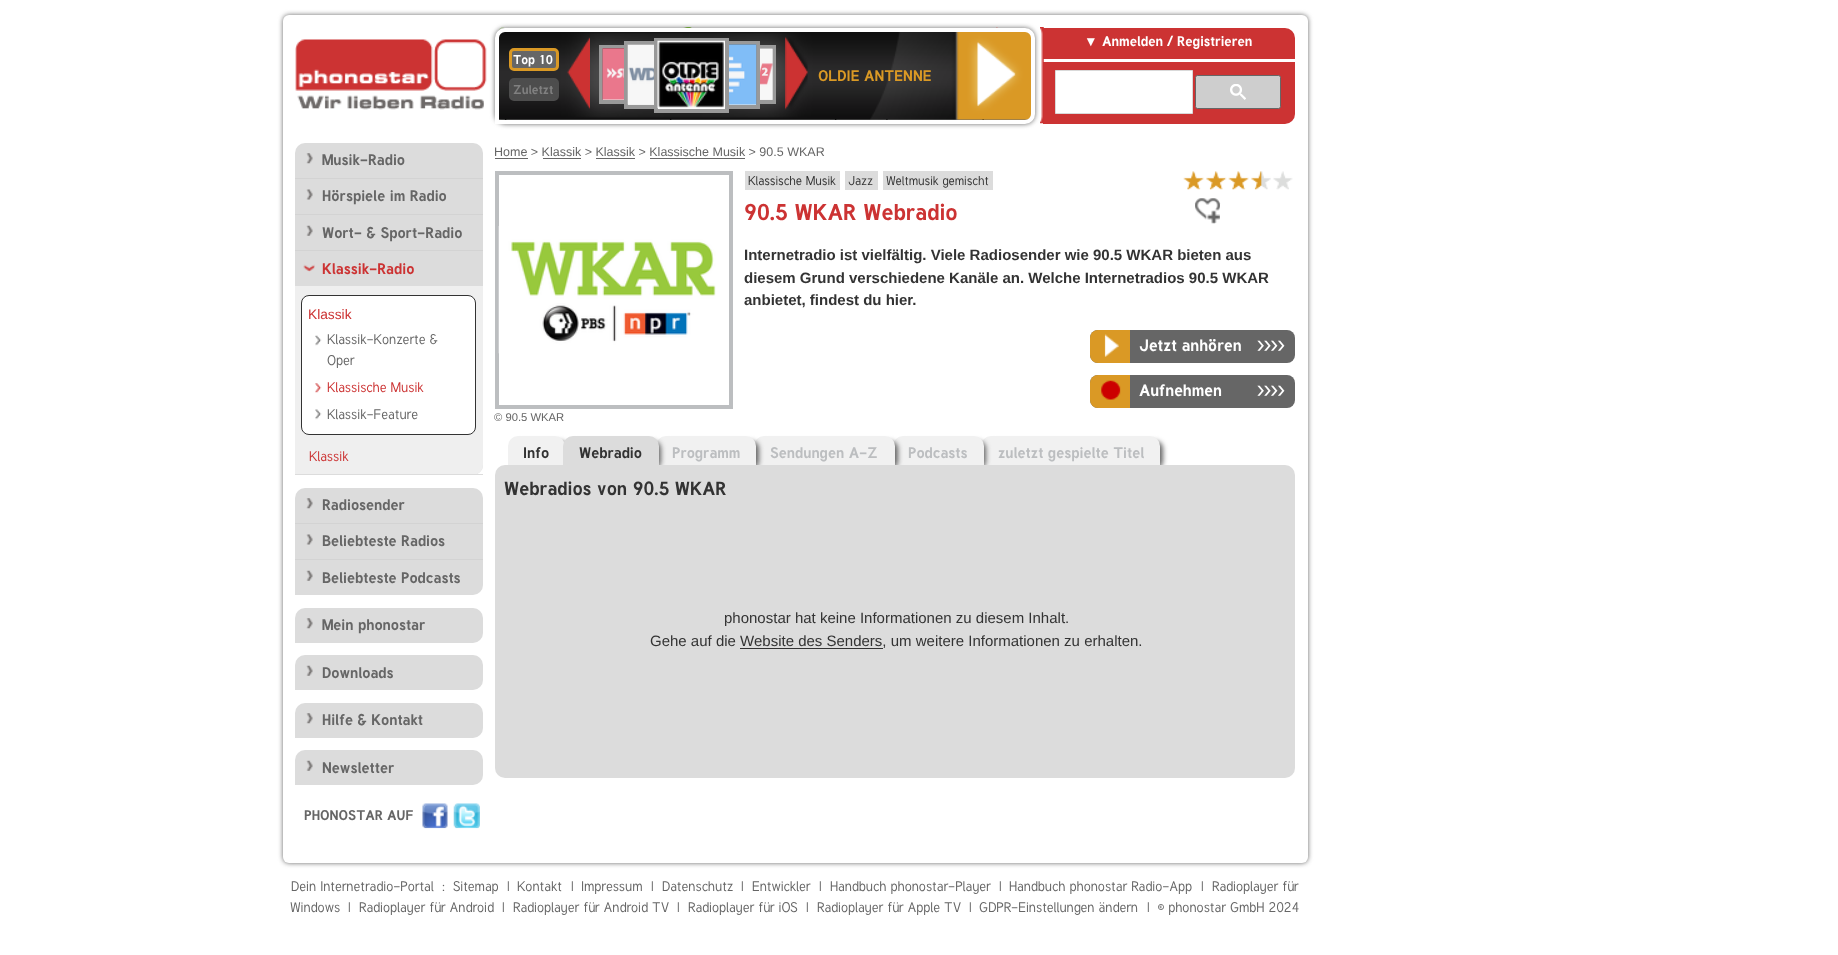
(async () => {
  const canvas = document.querySelector("canvas");
  canvas.width = 1838;
  canvas.height = 955;
  const ctx = canvas.getContext("2d");
  ctx.miterLimit = 4;
  ctx.fontKerning = "normal";
  async function loadImage(src) {
    const img = new Image();
    img.src = src;
    await img.decode();
    return img;
  }

  ctx.fillStyle = "#ffffff";
  ctx.fillRect(0, 0, 1838, 955);
  ctx.fillStyle = "#666666";
  ctx.filter = "blur(2.5px)";
  ctx.beginPath();
  ctx.roundRect(283, 15, 1025, 848, 6);
  ctx.fill();
  ctx.filter = "none";
  ctx.fillStyle = "#ffffff";
  ctx.beginPath();
  ctx.roundRect(283, 15, 1025, 848, 6);
  ctx.fill();
  ctx.drawImage(await loadImage("img/1.png"), 295, 39, 192, 71);
  ctx.fillStyle = "#666666";
  ctx.filter = "blur(2.5px)";
  ctx.beginPath();
  ctx.roundRect(495, 28, 540, 96, 10);
  ctx.fill();
  ctx.filter = "none";
  ctx.drawImage(await loadImage("img/2.png"), 498, 27, 534, 93);
  ctx.beginPath();
  ctx.roundRect(497, 30, 536, 92, [8, 8, 8, 0]);
  ctx.strokeStyle = "#ffffff";
  ctx.lineWidth = 4;
  ctx.stroke();
  ctx.beginPath();
  ctx.roundRect(510.5, 49.5, 47, 20, 3.5);
  ctx.fill();
  ctx.strokeStyle = "#da9925";
  ctx.lineWidth = 3;
  ctx.stroke();
  ctx.fillStyle = "#4d4d4d";
  ctx.beginPath();
  ctx.roundRect(510.5, 79.5, 47, 20, 3.5);
  ctx.fill();
  ctx.strokeStyle = "#4d4d4d";
  ctx.stroke();
  ctx.drawImage(await loadImage("img/3.png"), 567, 37, 23, 73);
  ctx.strokeStyle = "#999999";
  ctx.lineWidth = 4;
  ctx.strokeRect(601, 47, 55, 55);
  ctx.fillStyle = "#dcdcdc";
  ctx.fillRect(628, 45, 26, 60);
  ctx.strokeRect(626, 43, 63, 64);
  ctx.fillRect(760, 49, 12, 51);
  ctx.strokeRect(720, 47, 54, 55);
  ctx.fillRect(729, 45, 27, 60);
  ctx.strokeRect(695, 43, 63, 64);
  ctx.strokeRect(656, 40, 71, 71);
  ctx.fillStyle = "#ffffff";
  ctx.fillRect(658, 108, 67, 1);
  ctx.drawImage(await loadImage("img/4.png"), 657, 40, 68, 69);
  ctx.fillStyle = "rgba(255, 255, 255, 0.5)";
  ctx.fillRect(628, 45, 26, 60);
  ctx.drawImage(await loadImage("img/5.png"), 627, 44, 27, 61);
  ctx.fillRect(729, 45, 27, 60);
  ctx.drawImage(await loadImage("img/6.png"), 729, 44, 28, 61);
  ctx.fillStyle = "#eeeeee";
  ctx.fillRect(603, 49, 21, 51);
  ctx.drawImage(await loadImage("img/7.png"), 602, 48, 22, 52);
  ctx.fillStyle = "rgba(255, 255, 255, 0.5)";
  ctx.fillRect(760, 49, 13, 51);
  ctx.drawImage(await loadImage("img/8.png"), 760, 48, 13, 52);
  ctx.drawImage(await loadImage("img/9.png"), 785, 37, 23, 73);
  ctx.fillStyle = "#cc3333";
  ctx.beginPath();
  ctx.roundRect(1043, 28, 252, 96, [0, 10, 10, 0]);
  ctx.fill();
  ctx.fillStyle = "#ffffff";
  ctx.fillRect(1043, 59, 252, 3);
  ctx.drawImage(await loadImage("img/10.png"), 1040, 27, 4, 97);
  ctx.beginPath();
  ctx.rect(1055.5, 70.5, 137, 43);
  ctx.fill();
  ctx.strokeStyle = "#d9d9d9";
  ctx.lineWidth = 1;
  ctx.stroke();
  ctx.fillStyle = "#cecece";
  ctx.beginPath();
  ctx.roundRect(1195.5, 75.5, 85, 33, 2);
  ctx.fill();
  ctx.strokeStyle = "#666666";
  ctx.stroke();
  ctx.drawImage(await loadImage("img/11.png"), 1230, 84, 16, 16);
  ctx.fillStyle = "#dcdcdc";
  ctx.beginPath();
  ctx.roundRect(295, 143, 188, 332, [10, 10, 10, 0]);
  ctx.fill();
  ctx.fillStyle = "#d3d3d3";
  ctx.fillRect(295, 178, 188, 1);
  ctx.drawImage(await loadImage("img/12.png"), 306, 153, 7, 11);
  ctx.fillRect(295, 214, 188, 1);
  ctx.drawImage(await loadImage("img/13.png"), 306, 189, 7, 11);
  ctx.fillRect(295, 250, 188, 1);
  ctx.drawImage(await loadImage("img/14.png"), 306, 225, 7, 11);
  ctx.drawImage(await loadImage("img/15.png"), 303, 264, 12, 8);
  ctx.fillStyle = "#efefef";
  ctx.beginPath();
  ctx.roundRect(295, 286, 188, 189, [0, 0, 10, 0]);
  ctx.fill();
  ctx.fillStyle = "#dcdcdc";
  ctx.fillRect(295, 474, 188, 1);
  ctx.fillStyle = "#ffffff";
  ctx.beginPath();
  ctx.roundRect(301.5, 295.5, 174, 139, 7.5);
  ctx.fill();
  ctx.strokeStyle = "#333333";
  ctx.stroke();
  ctx.drawImage(await loadImage("img/16.png"), 315, 335, 7, 11);
  ctx.drawImage(await loadImage("img/17.png"), 315, 383, 7, 10);
  ctx.drawImage(await loadImage("img/18.png"), 315, 409, 7, 11);
  ctx.fillStyle = "#dcdcdc";
  ctx.beginPath();
  ctx.roundRect(295, 488, 188, 107, [10, 10, 10, 0]);
  ctx.fill();
  ctx.fillStyle = "#d3d3d3";
  ctx.fillRect(295, 523, 188, 1);
  ctx.drawImage(await loadImage("img/12.png"), 306, 498, 7, 11);
  ctx.fillRect(295, 559, 188, 1);
  ctx.drawImage(await loadImage("img/13.png"), 306, 534, 7, 11);
  ctx.drawImage(await loadImage("img/14.png"), 306, 570, 7, 11);
  ctx.fillStyle = "#dcdcdc";
  ctx.beginPath();
  ctx.roundRect(295, 608, 188, 35, [10, 10, 10, 0]);
  ctx.fill();
  ctx.drawImage(await loadImage("img/12.png"), 306, 618, 7, 11);
  ctx.beginPath();
  ctx.roundRect(295, 655, 188, 35, [10, 10, 10, 0]);
  ctx.fill();
  ctx.drawImage(await loadImage("img/19.png"), 306, 665, 7, 11);
  ctx.beginPath();
  ctx.roundRect(295, 703, 188, 35, [10, 10, 10, 0]);
  ctx.fill();
  ctx.drawImage(await loadImage("img/12.png"), 306, 713, 7, 11);
  ctx.beginPath();
  ctx.roundRect(295, 750, 188, 35, [10, 10, 10, 0]);
  ctx.fill();
  ctx.drawImage(await loadImage("img/14.png"), 306, 760, 7, 11);
  ctx.drawImage(await loadImage("img/20.png"), 422, 803, 26, 26);
  ctx.drawImage(await loadImage("img/21.png"), 453, 803, 27, 26);
  for (const [x, y, w, h, color] of [
    [495, 158, 33, 1, "#666666"],
    [543, 158, 38, 1, "#666666"],
    [596, 158, 39, 1, "#666666"],
    [650, 158, 95, 1, "#666666"],
    [745, 171, 95, 19, "#dcdcdc"],
    [845, 171, 33, 19, "#dcdcdc"],
    [883, 171, 110, 19, "#dcdcdc"],
  ]) {
    ctx.fillStyle = color;
    ctx.fillRect(x, y, w, h);
  }
  ctx.drawImage(await loadImage("img/22.png"), 1183, 171, 21, 19);
  ctx.drawImage(await loadImage("img/23.png"), 1206, 171, 21, 19);
  ctx.drawImage(await loadImage("img/22.png"), 1228, 171, 21, 19);
  ctx.drawImage(await loadImage("img/24.png"), 1251, 171, 20, 19);
  ctx.drawImage(await loadImage("img/25.png"), 1273, 171, 20, 19);
  ctx.drawImage(await loadImage("img/26.png"), 1194, 198, 27, 26);
  ctx.fillStyle = "#666666";
  ctx.beginPath();
  ctx.roundRect(1090, 330, 205, 33, 8);
  ctx.fill();
  ctx.fillStyle = "#da9925";
  ctx.beginPath();
  ctx.roundRect(1090, 330, 40, 33, [8, 0, 0, 8]);
  ctx.fill();
  ctx.drawImage(await loadImage("img/27.png"), 1104, 334, 15, 23);
  ctx.fillStyle = "#666666";
  ctx.beginPath();
  ctx.roundRect(1090, 375, 205, 33, 8);
  ctx.fill();
  ctx.fillStyle = "#da9925";
  ctx.beginPath();
  ctx.roundRect(1090, 375, 40, 33, [8, 0, 0, 8]);
  ctx.fill();
  ctx.drawImage(await loadImage("img/28.png"), 1101, 380, 20, 20);
  ctx.strokeStyle = "#bcbec0";
  ctx.lineWidth = 4;
  ctx.strokeRect(497, 173, 234, 234);
  ctx.drawImage(await loadImage("img/29.png"), 498, 226, 218, 128);
  ctx.fillStyle = "#dcdcdc";
  ctx.beginPath();
  ctx.roundRect(495, 465, 800, 313, 10);
  ctx.fill();
  ctx.save();
  ctx.beginPath();
  ctx.rect(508, 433, 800, 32);
  ctx.clip();
  ctx.fillStyle = "#666666";
  ctx.filter = "blur(2.5px)";
  ctx.beginPath();
  ctx.roundRect(515, 441, 53, 28, 8);
  ctx.fill();
  ctx.filter = "none";
  ctx.restore();
  ctx.fillStyle = "#f1f1f1";
  ctx.beginPath();
  ctx.roundRect(508, 436, 57, 29, [10, 10, 0, 0]);
  ctx.fill();
  ctx.save();
  ctx.beginPath();
  ctx.rect(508, 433, 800, 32);
  ctx.clip();
  ctx.fillStyle = "#666666";
  ctx.filter = "blur(2.5px)";
  ctx.beginPath();
  ctx.roundRect(989, 441, 174, 28, 8);
  ctx.fill();
  ctx.filter = "none";
  ctx.restore();
  ctx.beginPath();
  ctx.roundRect(981, 436, 179, 29, [10, 10, 0, 0]);
  ctx.fill();
  ctx.save();
  ctx.beginPath();
  ctx.rect(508, 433, 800, 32);
  ctx.clip();
  ctx.fillStyle = "#666666";
  ctx.filter = "blur(2.5px)";
  ctx.beginPath();
  ctx.roundRect(900, 441, 86, 28, 8);
  ctx.fill();
  ctx.filter = "none";
  ctx.restore();
  ctx.beginPath();
  ctx.roundRect(893, 436, 91, 29, [10, 10, 0, 0]);
  ctx.fill();
  ctx.save();
  ctx.beginPath();
  ctx.rect(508, 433, 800, 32);
  ctx.clip();
  ctx.fillStyle = "#666666";
  ctx.filter = "blur(2.5px)";
  ctx.beginPath();
  ctx.roundRect(761, 441, 137, 28, 8);
  ctx.fill();
  ctx.filter = "none";
  ctx.restore();
  ctx.beginPath();
  ctx.roundRect(754, 436, 141, 29, [10, 10, 0, 0]);
  ctx.fill();
  ctx.save();
  ctx.beginPath();
  ctx.rect(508, 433, 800, 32);
  ctx.clip();
  ctx.fillStyle = "#666666";
  ctx.filter = "blur(2.5px)";
  ctx.beginPath();
  ctx.roundRect(664, 441, 95, 28, 8);
  ctx.fill();
  ctx.filter = "none";
  ctx.restore();
  ctx.beginPath();
  ctx.roundRect(656, 436, 100, 29, [10, 10, 0, 0]);
  ctx.fill();
  ctx.save();
  ctx.beginPath();
  ctx.rect(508, 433, 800, 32);
  ctx.clip();
  ctx.fillStyle = "#666666";
  ctx.filter = "blur(2.5px)";
  ctx.beginPath();
  ctx.roundRect(570, 441, 91, 28, 8);
  ctx.fill();
  ctx.filter = "none";
  ctx.restore();
  ctx.fillStyle = "#dcdcdc";
  ctx.beginPath();
  ctx.roundRect(563, 436, 96, 29, [10, 10, 0, 0]);
  ctx.fill();
  ctx.fillStyle = "#333333";
  ctx.fillRect(740, 648, 143, 1);
  ctx.font = "bold 12.5px Tuffy";
  ctx.fillStyle = "#ffffff";
  ctx.fillText("Top 10", 513, 64);
  ctx.fillStyle = "#808080";
  ctx.fillText("Zuletzt", 513, 94);
  ctx.font = "bold 15px Tuffy";
  ctx.fillStyle = "#da9925";
  ctx.fillText("OLDIE ANTENNE", 818, 81);
  ctx.font = "13.75px Liberation Sans";
  ctx.fillStyle = "#ffffff";
  ctx.fillText("▼", 1084, 46);
  ctx.font = "bold 13.75px Tuffy";
  ctx.fillText("Anmelden / Registrieren", 1102, 46);
  ctx.font = "bold 15px Tuffy";
  ctx.fillStyle = "#666666";
  for (const [text, x, y] of [
    ["Musik-Radio", 322, 165],
    ["Hörspiele im Radio", 322, 201],
    ["Wort- & Sport-Radio", 322, 238],
  ]) {
    ctx.fillText(text, x, y);
  }
  ctx.fillStyle = "#cc3333";
  ctx.fillText("Klassik-Radio", 322, 274);
  ctx.font = "13.75px Liberation Sans";
  ctx.fillText("Klassik", 308, 319);
  ctx.font = "13.75px Tuffy";
  ctx.fillStyle = "#666666";
  ctx.fillText("Klassik-Konzerte &", 327, 344);
  ctx.fillText("Oper", 327, 365);
  ctx.fillStyle = "#cc3333";
  ctx.fillText("Klassische Musik", 327, 392);
  ctx.fillStyle = "#666666";
  ctx.fillText("Klassik-Feature", 327, 419);
  ctx.fillStyle = "#cc3333";
  ctx.fillText("Klassik", 309, 461);
  ctx.font = "bold 15px Tuffy";
  ctx.fillStyle = "#666666";
  for (const [text, x, y] of [
    ["Radiosender", 322, 510],
    ["Beliebteste Radios", 322, 546],
    ["Beliebteste Podcasts", 322, 583],
    ["Mein phonostar", 322, 630],
    ["Downloads", 322, 678],
    ["Hilfe & Kontakt", 322, 725],
    ["Newsletter", 322, 773],
  ]) {
    ctx.fillText(text, x, y);
  }
  ctx.font = "bold 13.75px Tuffy";
  ctx.fillText("PHONOSTAR AUF", 304, 820);
  ctx.font = "12.5px Liberation Sans";
  ctx.fillText("Home > Klassik > Klassik > Klassische Musik > 90.5 WKAR", 494, 156);
  ctx.font = "12.5px Tuffy";
  ctx.fillStyle = "#333333";
  for (const [text, x, y] of [
    ["Klassische Musik", 748, 185],
    ["Jazz", 848, 185],
    ["Weltmusik gemischt", 886, 185],
  ]) {
    ctx.fillText(text, x, y);
  }
  ctx.font = "bold 22.5px Tuffy";
  ctx.fillStyle = "#cc3333";
  ctx.fillText("90.5 WKAR Webradio", 744, 220);
  ctx.font = "bold 15px Liberation Sans";
  ctx.fillStyle = "#333333";
  for (const [text, x, y] of [
    ["Internetradio ist vielfältig. Viele Radiosender wie 90.5 WKAR bieten aus", 744, 260],
    ["diesem Grund verschiedene Kanäle an. Welche Internetradios 90.5 WKAR", 744, 283],
    ["anbietet, findest du hier.", 744, 305],
  ]) {
    ctx.fillText(text, x, y);
  }
  ctx.font = "bold 16.25px Tuffy";
  ctx.fillStyle = "#ffffff";
  ctx.fillText("Jetzt anhören", 1139, 351);
  ctx.font = "bold 16.25px 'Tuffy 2'";
  ctx.fillText("››››", 1257, 351);
  ctx.font = "bold 16.25px Tuffy";
  ctx.fillText("Aufnehmen", 1139, 396);
  ctx.font = "bold 16.25px 'Tuffy 2'";
  ctx.fillText("››››", 1257, 396);
  ctx.font = "11.25px Liberation Sans";
  ctx.fillStyle = "#666666";
  ctx.fillText("© 90.5 WKAR", 494, 421);
  ctx.font = "bold 15px Tuffy";
  ctx.fillStyle = "#333333";
  ctx.fillText("Info", 523, 458);
  ctx.fillText("Webradio", 579, 458);
  ctx.fillStyle = "#bcbec0";
  for (const [text, x, y] of [
    ["Programm", 672, 458],
    ["Sendungen A-Z", 770, 458],
    ["Podcasts", 908, 458],
    ["zuletzt gespielte Titel", 998, 458],
  ]) {
    ctx.fillText(text, x, y);
  }
  ctx.font = "bold 18.75px Tuffy";
  ctx.fillStyle = "#333333";
  ctx.fillText("Webradios von 90.5 WKAR", 504, 495);
  ctx.font = "15px Liberation Sans";
  ctx.fillText("phonostar hat keine Informationen zu diesem Inhalt.", 724, 623);
  ctx.fillText("Gehe auf die Website des Senders, um weitere Informationen zu erhalten.", 650, 646);
  ctx.font = "13.75px Tuffy";
  ctx.fillStyle = "#666666";
  for (const [text, x, y] of [
    ["Dein Internetradio-Portal  :", 291, 891],
    ["Sitemap", 453, 891],
    ["|", 507, 891],
    ["Kontakt", 517, 891],
    ["|", 571, 891],
    ["Impressum", 581, 891],
    ["|", 651, 891],
    ["Datenschutz", 662, 891],
    ["|", 741, 891],
    ["Entwickler", 752, 891],
    ["|", 819, 891],
    ["Handbuch phonostar-Player", 830, 891],
    ["|", 999, 891],
    ["Handbuch phonostar Radio-App", 1009, 891],
    ["|", 1201, 891],
    ["Radioplayer für", 1212, 891],
    ["Windows", 290, 912],
    ["|", 348, 912],
    ["Radioplayer für Android", 359, 912],
    ["|", 502, 912],
    ["Radioplayer für Android TV", 513, 912],
    ["|", 677, 912],
    ["Radioplayer für iOS", 688, 912],
    ["|", 806, 912],
    ["Radioplayer für Apple TV", 817, 912],
    ["|", 969, 912],
    ["GDPR-Einstellungen ändern", 979, 912],
    ["|  © phonostar GmbH 2024", 1147, 912],
  ]) {
    ctx.fillText(text, x, y);
  }
})();
